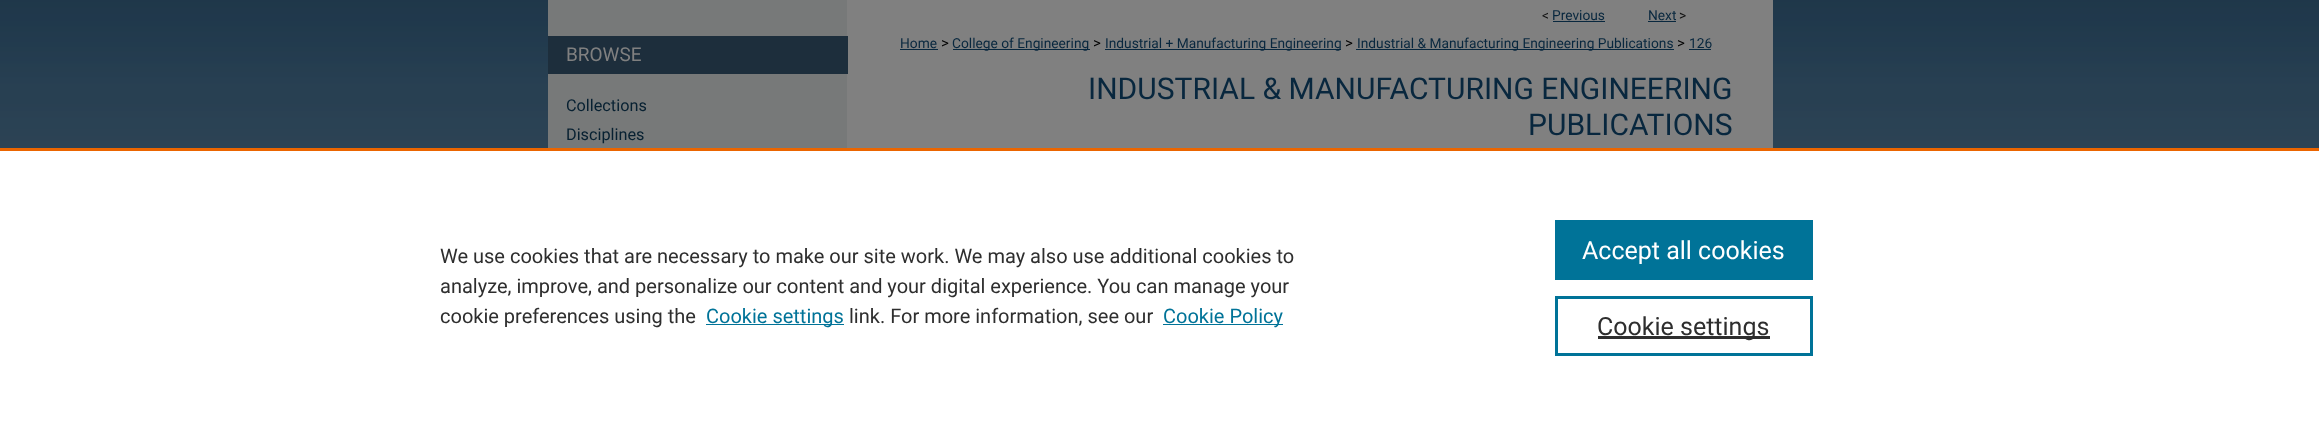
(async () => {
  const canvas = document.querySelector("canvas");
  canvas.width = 2319;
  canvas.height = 422;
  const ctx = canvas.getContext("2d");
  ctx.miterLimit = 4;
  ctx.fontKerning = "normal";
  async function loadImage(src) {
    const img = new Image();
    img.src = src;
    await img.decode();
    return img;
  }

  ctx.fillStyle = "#ffffff";
  ctx.fillRect(0, 0, 2319, 422);
  ctx.drawImage(await loadImage("img/1.png"), 0, 0, 2319, 148);
  for (const [x, y, w, h, color] of [
    [548, 0, 299, 148, "#777979"],
    [847, 0, 926, 148, "#808080"],
    [548, 36, 300, 38, "#1d2e3c"],
    [1553, 21, 52, 1, "#08273e"],
    [1648, 21, 28, 1, "#08273e"],
    [900, 49, 38, 1, "#08273e"],
    [953, 49, 137, 1, "#08273e"],
    [1105, 49, 236, 1, "#08273e"],
    [1356, 49, 318, 1, "#08273e"],
    [1689, 49, 22, 1, "#08273e"],
    [0, 148, 2319, 3, "#eb6500"],
    [706, 324, 138, 1, "#007398"],
    [1163, 324, 120, 1, "#007398"],
    [1555, 220, 258, 60, "#007398"],
  ]) {
    ctx.fillStyle = color;
    ctx.fillRect(x, y, w, h);
  }
  ctx.strokeStyle = "#007398";
  ctx.lineWidth = 3;
  ctx.strokeRect(1556.5, 297.5, 255, 57);
  ctx.fillStyle = "#2e2e2e";
  ctx.fillRect(1598, 336, 172, 3);
  ctx.font = "19px Roboto";
  ctx.fillStyle = "#808080";
  ctx.fillText("BROWSE", 566, 61);
  ctx.font = "16.25px Roboto";
  ctx.fillStyle = "#072031";
  ctx.fillText("Collections", 566, 111);
  ctx.fillText("Disciplines", 566, 140);
  ctx.font = "13.75px Roboto";
  ctx.fillStyle = "#111111";
  ctx.fillText("<", 1542, 20);
  ctx.fillStyle = "#08273e";
  ctx.fillText("Previous", 1552, 20);
  ctx.fillText("Next", 1648, 20);
  ctx.fillStyle = "#111111";
  ctx.fillText(">", 1679, 20);
  ctx.fillStyle = "#08273e";
  ctx.fillText("Home", 900, 48);
  ctx.font = "15px Roboto";
  ctx.fillStyle = "#000000";
  ctx.fillText(">", 941, 48);
  ctx.font = "13.75px Roboto";
  ctx.fillStyle = "#08273e";
  ctx.fillText("College of Engineering", 952, 48);
  ctx.font = "15px Roboto";
  ctx.fillStyle = "#000000";
  ctx.fillText(">", 1093, 48);
  ctx.font = "13.75px Roboto";
  ctx.fillStyle = "#08273e";
  ctx.fillText("Industrial + Manufacturing Engineering", 1105, 48);
  ctx.font = "15px Roboto";
  ctx.fillStyle = "#000000";
  ctx.fillText(">", 1345, 48);
  ctx.font = "13.75px Roboto";
  ctx.fillStyle = "#08273e";
  ctx.fillText("Industrial & Manufacturing Engineering Publications", 1357, 48);
  ctx.font = "15px Roboto";
  ctx.fillStyle = "#000000";
  ctx.fillText(">", 1677, 48);
  ctx.font = "13.75px Roboto";
  ctx.fillStyle = "#08273e";
  ctx.fillText("126", 1689, 48);
  ctx.font = "30px Roboto";
  ctx.fillText("INDUSTRIAL & MANUFACTURING ENGINEERING", 1088, 99);
  ctx.fillText("PUBLICATIONS", 1528, 135);
  ctx.font = "20px Roboto";
  ctx.fillStyle = "#2e2e2e";
  for (const [text, x, y] of [
    ["We use cookies that are necessary to make our site work. We may also use additional cookies to", 440, 263],
    ["analyze, improve, and personalize our content and your digital experience. You can manage your", 440, 293],
    ["cookie preferences using the", 440, 323],
  ]) {
    ctx.fillText(text, x, y);
  }
  ctx.fillStyle = "#007398";
  ctx.fillText("Cookie settings", 706, 323);
  ctx.fillStyle = "#2e2e2e";
  ctx.fillText("link. For more information, see our", 849, 323);
  ctx.fillStyle = "#007398";
  ctx.fillText("Cookie Policy", 1163, 323);
  ctx.font = "25px Roboto";
  ctx.fillStyle = "#ffffff";
  ctx.fillText("Accept all cookies", 1582, 259);
  ctx.fillStyle = "#2e2e2e";
  ctx.fillText("Cookie settings", 1597, 335);
})();
